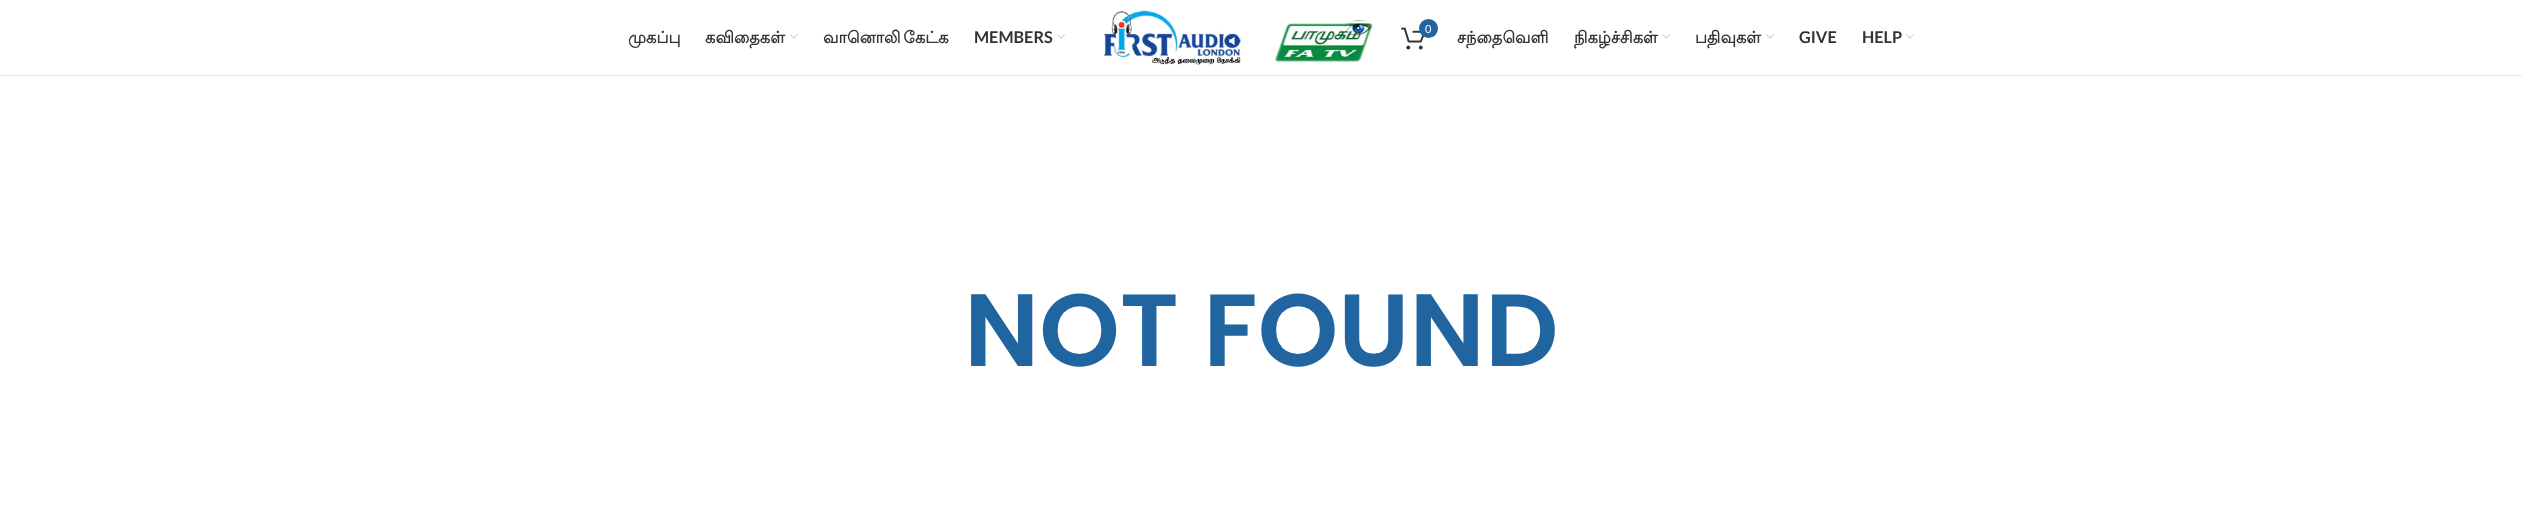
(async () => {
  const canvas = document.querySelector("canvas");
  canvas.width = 2522;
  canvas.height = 524;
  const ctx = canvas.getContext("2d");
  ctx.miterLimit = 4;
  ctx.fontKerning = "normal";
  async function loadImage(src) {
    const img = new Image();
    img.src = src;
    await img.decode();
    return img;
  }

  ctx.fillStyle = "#ffffff";
  ctx.fillRect(0, 0, 2522, 524);
  ctx.fillStyle = "#e6e6e6";
  ctx.fillRect(0, 75, 2522, 1);
  ctx.drawImage(await loadImage("img/1.png"), 1103, 9, 140, 56);
  ctx.drawImage(await loadImage("img/2.png"), 1275, 20, 98, 42);
  ctx.drawImage(await loadImage("img/3.png"), 1401, 27, 23, 23);
  ctx.fillStyle = "#2064a0";
  ctx.beginPath();
  ctx.arc(1428.5, 28.5, 9.5, 0, Math.PI * 2);
  ctx.fill();
  ctx.drawImage(await loadImage("img/4.png"), 790, 34, 8, 5);
  ctx.drawImage(await loadImage("img/5.png"), 1057, 34, 8, 5);
  ctx.drawImage(await loadImage("img/5.png"), 1662, 34, 8, 5);
  ctx.drawImage(await loadImage("img/6.png"), 1766, 34, 8, 5);
  ctx.drawImage(await loadImage("img/6.png"), 1906, 34, 8, 5);
  ctx.font = "11px Lato";
  ctx.fillStyle = "#ffffff";
  ctx.fillText("0", 1425, 33);
  ctx.font = "bold 16.25px Lohit Tamil";
  ctx.fillStyle = "#333333";
  ctx.fillText("முகப்பு", 628, 43);
  ctx.fillText("கவிதைகள்", 705, 43);
  ctx.wordSpacing = "-2px";
  ctx.fillText("வானொலி கேட்க", 823, 43);
  ctx.wordSpacing = "0px";
  ctx.font = "bold 16.25px Lato";
  ctx.fillText("MEMBERS", 974, 43);
  ctx.font = "bold 16.25px Lohit Tamil";
  for (const [text, x, y] of [
    ["சந்தைவெளி", 1457, 43],
    ["நிகழ்ச்சிகள்", 1574, 43],
    ["பதிவுகள்", 1695, 43],
  ]) {
    ctx.fillText(text, x, y);
  }
  ctx.font = "bold 16.25px Lato";
  ctx.fillText("GIVE", 1799, 43);
  ctx.fillText("HELP", 1862, 43);
  ctx.font = "600 102.5px Poppins";
  ctx.fillStyle = "#2064a0";
  ctx.fillText("NOT FOUND", 964, 366);
})();
